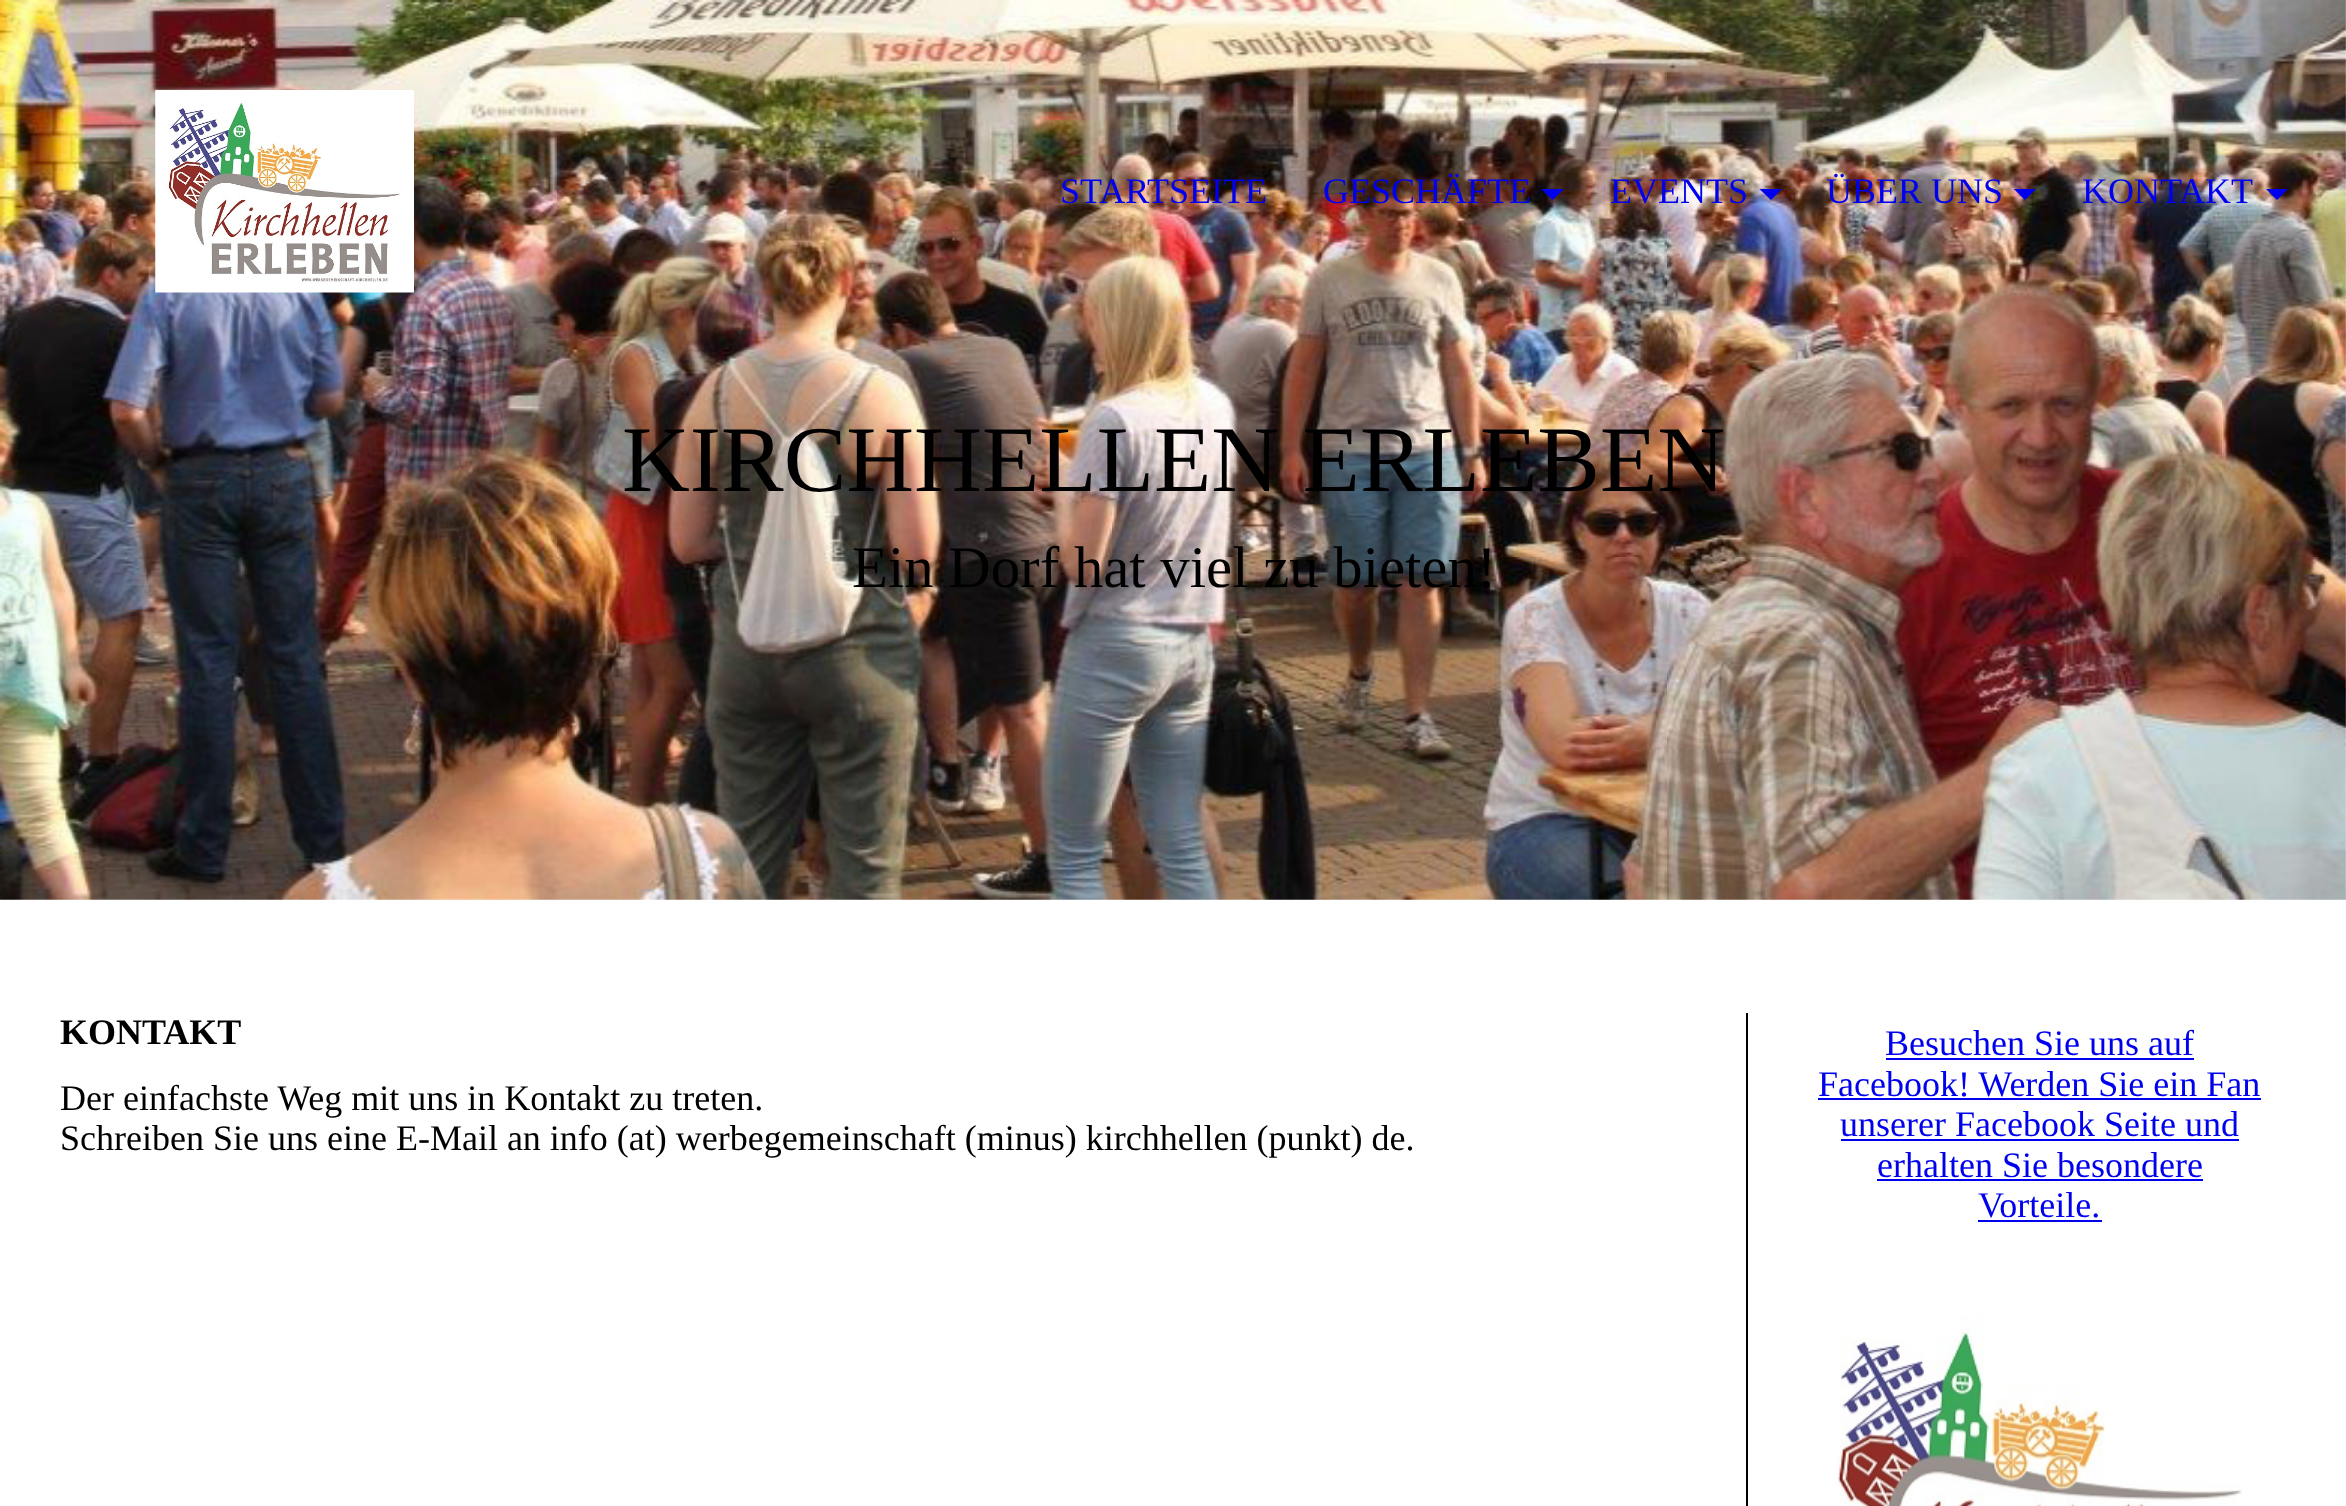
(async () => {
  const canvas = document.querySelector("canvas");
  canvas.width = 2346;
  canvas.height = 1506;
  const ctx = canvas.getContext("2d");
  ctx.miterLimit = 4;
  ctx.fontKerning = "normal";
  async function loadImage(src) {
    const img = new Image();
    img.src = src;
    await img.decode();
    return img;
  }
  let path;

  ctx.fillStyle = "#ffffff";
  ctx.fillRect(0, 0, 2346, 1506);
  ctx.drawImage(await loadImage("img/1.png"), 0, 0, 2346, 900);
  ctx.drawImage(await loadImage("img/2.png"), 155, 90, 259, 203);
  ctx.fillStyle = "#0000ee";
  path = new Path2D("M1541 189H1564L1552.5 200Z");
  ctx.fill(path);
  path = new Path2D("M1759.5 189H1782L1771 200Z");
  ctx.fill(path);
  path = new Path2D("M2014 189H2036L2025 200Z");
  ctx.fill(path);
  path = new Path2D("M2266 189H2288L2277 200Z");
  ctx.fill(path);
  for (const [x, y, w, h, color] of [
    [1746, 1013, 2, 493, "#000000"],
    [1886, 1058, 308, 2, "#0000ee"],
    [1818, 1098, 443, 2, "#0000ee"],
    [1841, 1139, 398, 2, "#0000ee"],
    [1877, 1179, 326, 2, "#0000ee"],
    [1978, 1220, 124, 2, "#0000ee"],
  ]) {
    ctx.fillStyle = color;
    ctx.fillRect(x, y, w, h);
  }
  ctx.drawImage(await loadImage("img/3.png"), 1837, 1314, 405, 192);
  ctx.font = "36px Liberation Serif";
  for (const [text, x, y] of [
    ["STARTSEITE", 1060, 203],
    ["GESCHÄFTE", 1323, 203],
    ["EVENTS", 1610, 203],
    ["ÜBER UNS", 1826, 203],
    ["KONTAKT", 2082, 203],
  ]) {
    ctx.fillText(text, x, y);
  }
  ctx.font = "93.9px Liberation Serif";
  ctx.fillStyle = "#000000";
  ctx.fillText("KIRCHHELLEN ERLEBEN", 622, 491);
  ctx.font = "58.75px Liberation Serif";
  ctx.fillText("Ein Dorf hat viel zu bieten!", 852, 587);
  ctx.font = "bold 36px Liberation Serif";
  ctx.fillText("KONTAKT", 60, 1044);
  ctx.font = "36px Liberation Serif";
  ctx.fillText("Der einfachste Weg mit uns in Kontakt zu treten.", 60, 1110);
  ctx.fillText("Schreiben Sie uns eine E-Mail an info (at) werbegemeinschaft (minus) kirchhellen (punkt) de.", 60, 1150);
  ctx.fillStyle = "#0000ee";
  for (const [text, x, y] of [
    ["Besuchen Sie uns auf", 1885, 1055],
    ["Facebook! Werden Sie ein Fan", 1818, 1096],
    ["unserer Facebook Seite und", 1840, 1136],
    ["erhalten Sie besondere", 1877, 1177],
    ["Vorteile.", 1978, 1217],
  ]) {
    ctx.fillText(text, x, y);
  }
})();
